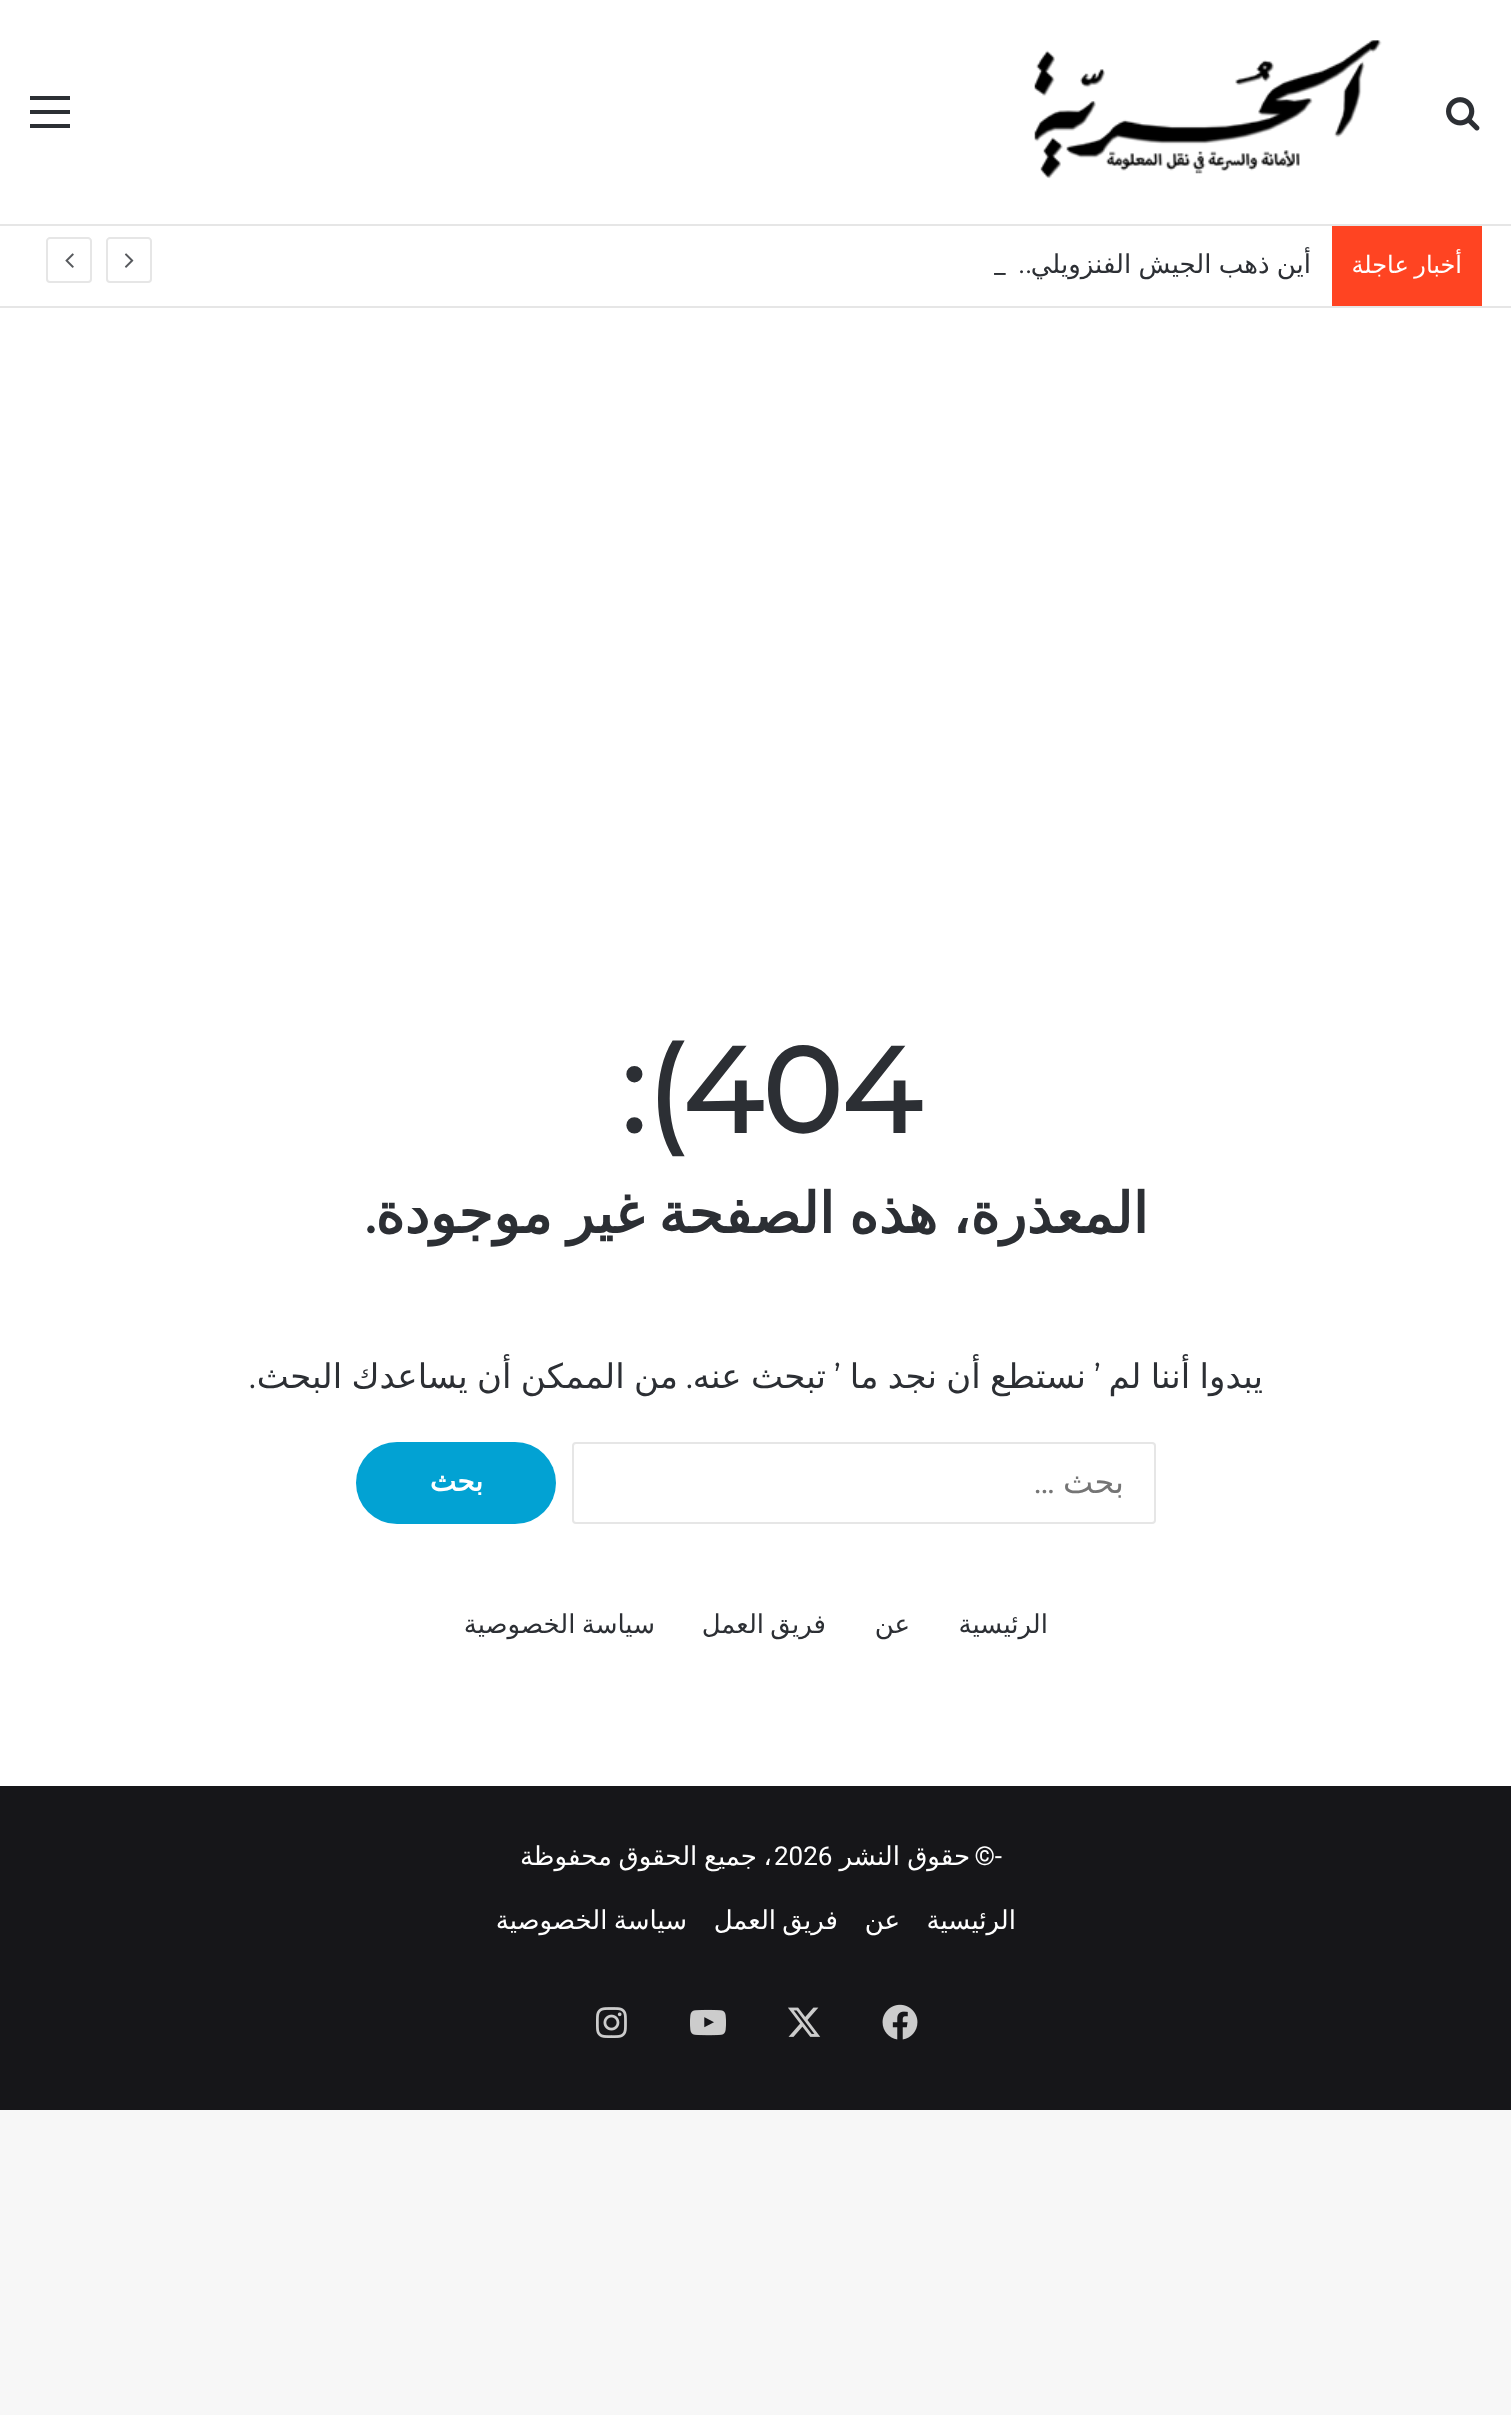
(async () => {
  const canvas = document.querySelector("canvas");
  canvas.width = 1511;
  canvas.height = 2415;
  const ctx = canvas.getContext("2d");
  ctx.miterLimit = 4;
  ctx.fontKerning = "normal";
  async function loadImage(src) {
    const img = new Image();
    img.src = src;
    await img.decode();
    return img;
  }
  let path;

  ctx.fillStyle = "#f7f7f7";
  ctx.fillRect(0, 0, 1511, 2415);
  ctx.fillStyle = "#ffffff";
  ctx.fillRect(0, 0, 1511, 1786);
  ctx.drawImage(await loadImage("img/1.png"), 1446, 97, 34, 34);
  ctx.drawImage(await loadImage("img/2.png"), 1034, 40, 348, 139);
  for (const [x, y, w, h, color] of [
    [30, 110, 40, 4, "#2c2f34"],
    [30, 96, 40, 4, "#2c2f34"],
    [30, 124, 40, 4, "#2c2f34"],
    [0, 224, 1511, 2, "#e6e6e6"],
    [0, 306, 1511, 2, "#e6e6e6"],
    [1332, 226, 150, 80, "#ff4422"],
  ]) {
    ctx.fillStyle = color;
    ctx.fillRect(x, y, w, h);
  }
  path = new Path2D("M148 282H110C108.5 282 107 281 107 279V241C107 239.5 108.5 238 110 238H148C149.5 238 151 239.5 151 241V279C151 281 149.5 282 148 282Z");
  ctx.strokeStyle = "#e6e6e6";
  ctx.lineWidth = 2;
  ctx.stroke(path);
  ctx.drawImage(await loadImage("img/3.png"), 124, 253, 10, 15);
  path = new Path2D("M88 282H50C48.5 282 47 281 47 279V241C47 239.5 48.5 238 50 238H88C89.5 238 91 239.5 91 241V279C91 281 89.5 282 88 282Z");
  ctx.stroke(path);
  ctx.drawImage(await loadImage("img/4.png"), 65, 253, 9, 15);
  ctx.beginPath();
  ctx.roundRect(573, 1443, 582, 80, 3);
  ctx.stroke();
  ctx.fillStyle = "#02a2d3";
  ctx.beginPath();
  ctx.roundRect(356, 1442, 200, 82, 41);
  ctx.fill();
  ctx.fillStyle = "#161619";
  ctx.fillRect(0, 1786, 1511, 324);
  ctx.drawImage(await loadImage("img/5.png"), 882, 2004, 36, 36);
  ctx.drawImage(await loadImage("img/6.png"), 788, 2007, 33, 30);
  ctx.drawImage(await loadImage("img/7.png"), 690, 2009, 36, 27);
  ctx.drawImage(await loadImage("img/8.png"), 596, 2007, 31, 31);
  ctx.wordSpacing = "-2px";
  ctx.direction = "rtl";
  ctx.font = "24px DejaVu Sans";
  ctx.fillStyle = "#ffffff";
  ctx.fillText("أخبار عاجلة", 1462, 273);
  ctx.wordSpacing = "-1px";
  ctx.font = "26px DejaVu Sans";
  ctx.fillStyle = "#2c2f34";
  ctx.fillText("أين ذهب الجيش الفنزويلي", 1311, 273);
  ctx.wordSpacing = "0px";
  ctx.font = "26px Roboto";
  ctx.fillText("..", 1032, 273);
  ctx.direction = "ltr";
  ctx.fillText("_", 994, 273);
  ctx.font = "bold 120px Montserrat";
  ctx.fillText(":(404", 620, 1133);
  ctx.wordSpacing = "-3px";
  ctx.direction = "rtl";
  ctx.font = "bold 56px DejaVu Sans";
  ctx.fillText("المعذرة، هذه الصفحة غير موجودة", 1148, 1233);
  ctx.wordSpacing = "0px";
  ctx.font = "bold 56px Montserrat";
  ctx.fillText(".", 376, 1233);
  ctx.wordSpacing = "-1.5px";
  ctx.font = "34px DejaVu Sans";
  ctx.fillText("يبدوا أننا لم", 1263, 1388);
  ctx.wordSpacing = "0px";
  ctx.font = "100 34px Montserrat";
  ctx.fillText("’", 1101, 1388);
  ctx.wordSpacing = "-1.5px";
  ctx.font = "34px DejaVu Sans";
  ctx.fillText("نستطع أن نجد ما", 1086, 1388);
  ctx.wordSpacing = "0px";
  ctx.font = "100 34px Montserrat";
  ctx.fillText("’", 841, 1388);
  ctx.wordSpacing = "-1.5px";
  ctx.font = "34px DejaVu Sans";
  ctx.fillText("من الممكن أن يساعدك البحث", 678, 1388);
  ctx.fillText("تبحث عنه", 826, 1388);
  ctx.wordSpacing = "0px";
  ctx.font = "100 34px Montserrat";
  ctx.fillText(".", 693, 1388);
  ctx.fillText(".", 256, 1388);
  ctx.font = "32px DejaVu Sans";
  ctx.fillStyle = "#757575";
  ctx.fillText("بحث", 1124, 1493);
  ctx.font = "32px Roboto";
  ctx.fillText("…", 1055, 1493);
  ctx.font = "bold 28px DejaVu Sans";
  ctx.fillStyle = "#ffffff";
  ctx.fillText("بحث", 483, 1491);
  ctx.font = "26px DejaVu Sans";
  ctx.fillStyle = "#2c2f34";
  ctx.fillText("الرئيسية", 1048, 1633);
  ctx.fillText("عن", 910, 1633);
  ctx.wordSpacing = "-2px";
  ctx.fillText("فريق العمل", 826, 1633);
  ctx.fillText("سياسة الخصوصية", 655, 1633);
  ctx.wordSpacing = "0px";
  ctx.font = "26px Roboto";
  ctx.fillStyle = "#ffffff";
  ctx.fillText("-©", 1002, 1865);
  ctx.wordSpacing = "-1px";
  ctx.font = "26px DejaVu Sans";
  ctx.fillText("حقوق النشر", 970, 1865);
  ctx.wordSpacing = "0px";
  ctx.direction = "ltr";
  ctx.font = "26px Roboto";
  ctx.fillText("2026", 774, 1865);
  ctx.wordSpacing = "-1.5px";
  ctx.direction = "rtl";
  ctx.font = "26px DejaVu Sans";
  ctx.fillText("، جميع الحقوق محفوظة", 772, 1865);
  ctx.wordSpacing = "0px";
  ctx.fillText("الرئيسية", 1016, 1929);
  ctx.fillText("عن", 900, 1929);
  ctx.wordSpacing = "-2px";
  ctx.fillText("فريق العمل", 838, 1929);
  ctx.fillText("سياسة الخصوصية", 687, 1929);
})();
